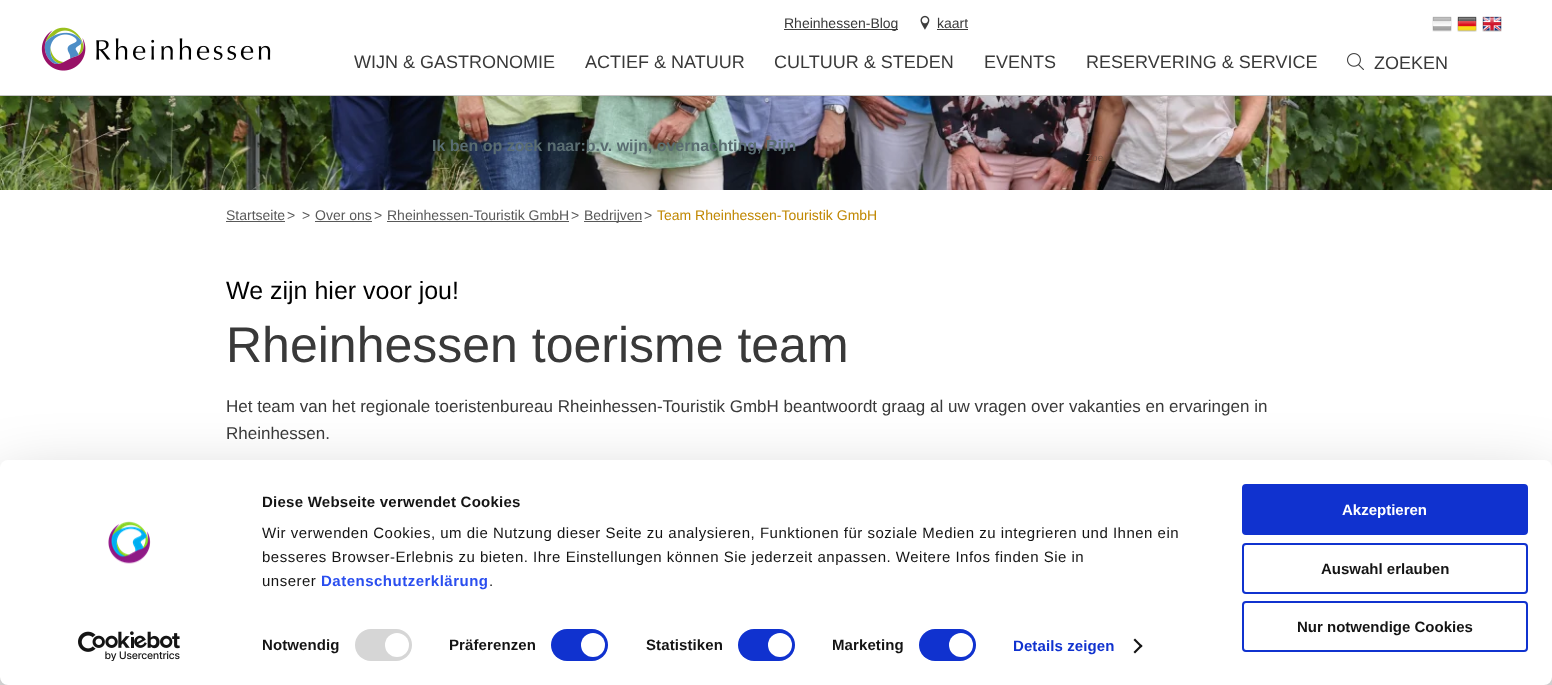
(async () => {
  const canvas = document.querySelector("canvas");
  canvas.width = 1552;
  canvas.height = 685;
  const ctx = canvas.getContext("2d");
  ctx.miterLimit = 4;
  ctx.fontKerning = "normal";
  async function loadImage(src) {
    const img = new Image();
    img.src = src;
    await img.decode();
    return img;
  }
  let path;

  ctx.fillStyle = "#ffffff";
  ctx.fillRect(0, 0, 1552, 685);
  ctx.fillStyle = "#c6c6c6";
  ctx.fillRect(0, 95, 1552, 1);
  ctx.drawImage(await loadImage("img/1.png"), 41, 27, 230, 44);
  ctx.fillStyle = "#3d3d3d";
  ctx.fillRect(784, 29, 114, 1);
  ctx.drawImage(await loadImage("img/2.png"), 920, 15, 10, 15);
  ctx.fillRect(937, 29, 31, 1);
  ctx.drawImage(await loadImage("img/3.png"), 1432, 16, 20, 16);
  ctx.drawImage(await loadImage("img/4.png"), 1457, 16, 20, 16);
  ctx.drawImage(await loadImage("img/5.png"), 1482, 16, 20, 16);
  ctx.drawImage(await loadImage("img/6.png"), 1347, 53, 17, 17);
  ctx.drawImage(await loadImage("img/7.png"), 0, 96, 1552, 94);
  for (const [x, y, w, h, color] of [
    [226, 221, 59, 1, "#595959"],
    [315, 221, 57, 1, "#595959"],
    [387, 221, 182, 1, "#595959"],
    [584, 221, 58, 1, "#595959"],
    [0, 677, 1552, 8, "#eeeeee"],
  ]) {
    ctx.fillStyle = color;
    ctx.fillRect(x, y, w, h);
  }
  ctx.fillStyle = "rgba(0, 0, 0, 0.3)";
  ctx.filter = "blur(35px)";
  ctx.beginPath();
  ctx.roundRect(0, 490, 1552, 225, 8);
  ctx.fill();
  ctx.filter = "none";
  ctx.fillStyle = "#ffffff";
  ctx.beginPath();
  ctx.roundRect(0, 460, 1552, 225, 8);
  ctx.fill();
  ctx.drawImage(await loadImage("img/8.png"), 108, 521, 43, 43);
  ctx.drawImage(await loadImage("img/9.png"), 78, 631, 102, 30);
  ctx.fillStyle = "#d6d6d6";
  ctx.beginPath();
  ctx.roundRect(355, 629, 57, 32, 16);
  ctx.fill();
  ctx.fillStyle = "#ffffff";
  ctx.beginPath();
  ctx.arc(397, 645, 12, 0, Math.PI * 2);
  ctx.fill();
  ctx.fillStyle = "#1032cf";
  ctx.beginPath();
  ctx.roundRect(551, 629, 57, 32, 16);
  ctx.fill();
  ctx.fillStyle = "#ffffff";
  ctx.beginPath();
  ctx.arc(593, 645, 12, 0, Math.PI * 2);
  ctx.fill();
  ctx.fillStyle = "#1032cf";
  ctx.beginPath();
  ctx.roundRect(738, 629, 57, 32, 16);
  ctx.fill();
  ctx.fillStyle = "#ffffff";
  ctx.beginPath();
  ctx.arc(780, 645, 12, 0, Math.PI * 2);
  ctx.fill();
  ctx.fillStyle = "#1032cf";
  ctx.beginPath();
  ctx.roundRect(919, 629, 57, 32, 16);
  ctx.fill();
  ctx.fillStyle = "#ffffff";
  ctx.beginPath();
  ctx.arc(961, 645, 12, 0, Math.PI * 2);
  ctx.fill();
  ctx.fillStyle = "#141414";
  path = new Path2D("M1135 638.5L1142.5 646L1141 647.5L1133.5 640Z");
  ctx.fill(path);
  path = new Path2D("M1141 644.5L1142.5 646L1135 653.5L1133.5 652Z");
  ctx.fill(path);
  ctx.fillStyle = "#1032cf";
  ctx.beginPath();
  ctx.roundRect(1243, 485, 284, 49, 3);
  ctx.fill();
  ctx.strokeStyle = "#1032cf";
  ctx.lineWidth = 2;
  ctx.stroke();
  ctx.beginPath();
  ctx.roundRect(1243, 544, 284, 49, 3);
  ctx.stroke();
  ctx.beginPath();
  ctx.roundRect(1243, 602, 284, 49, 3);
  ctx.stroke();
  ctx.font = "14px Liberation Sans";
  ctx.fillStyle = "#393939";
  ctx.fillText("Rheinhessen-Blog", 784, 28);
  ctx.fillText("kaart", 937, 28);
  ctx.font = "18px Liberation Sans";
  for (const [text, x, y] of [
    ["WIJN & GASTRONOMIE", 354, 68],
    ["ACTIEF & NATUUR", 585, 68],
    ["CULTUUR & STEDEN", 774, 68],
    ["EVENTS", 984, 68],
    ["RESERVERING & SERVICE", 1086, 68],
    ["ZOEKEN", 1374, 69],
  ]) {
    ctx.fillText(text, x, y);
  }
  ctx.font = "bold 16px Liberation Sans";
  ctx.fillStyle = "#5a6d71";
  ctx.fillText("Ik ben op zoek naar:b.v. wijn, overnachting, Rijn", 432, 151);
  ctx.font = "10px Liberation Sans";
  ctx.fillStyle = "#795649";
  ctx.fillText("Zoe", 1086, 161);
  ctx.font = "14px Liberation Sans";
  ctx.fillStyle = "#595959";
  for (const [text, x, y] of [
    ["Startseite", 226, 220],
    [">", 287, 220],
    [">", 302, 220],
    ["Over ons", 315, 220],
    [">", 374, 220],
    ["Rheinhessen-Touristik GmbH", 387, 220],
    [">", 571, 220],
    ["Bedrijven", 584, 220],
    [">", 644, 220],
  ]) {
    ctx.fillText(text, x, y);
  }
  ctx.fillStyle = "#c08700";
  ctx.fillText("Team Rheinhessen-Touristik GmbH", 657, 220);
  ctx.font = "25px Liberation Sans";
  ctx.fillStyle = "#000000";
  ctx.fillText("We zijn hier voor jou!", 226, 299);
  ctx.font = "50px Liberation Sans";
  ctx.fillStyle = "#393939";
  ctx.fillText("Rheinhessen toerisme team", 226, 362);
  ctx.font = "17px Liberation Sans";
  ctx.fillText("Het team van het regionale toeristenbureau Rheinhessen-Touristik GmbH beantwoordt graag al uw vragen over vakanties en ervaringen in", 226, 412);
  ctx.fillText("Rheinhessen.", 226, 439);
  ctx.letterSpacing = "0.25px";
  ctx.font = "bold 15px Liberation Sans";
  ctx.fillStyle = "#141414";
  ctx.fillText("Diese Webseite verwendet Cookies", 262, 507);
  ctx.letterSpacing = "0.5px";
  ctx.font = "15px Liberation Sans";
  for (const [text, x, y] of [
    ["Wir verwenden Cookies, um die Nutzung dieser Seite zu analysieren, Funktionen für soziale Medien zu integrieren und Ihnen ein", 262, 538],
    ["besseres Browser-Erlebnis zu bieten. Ihre Einstellungen können Sie jederzeit anpassen. Weitere Infos finden Sie in", 262, 562],
    ["unserer", 262, 586],
  ]) {
    ctx.fillText(text, x, y);
  }
  ctx.font = "bold 15px Liberation Sans";
  ctx.fillStyle = "#2a4eef";
  ctx.fillText("Datenschutzerklärung", 321, 586);
  ctx.font = "15px Liberation Sans";
  ctx.fillStyle = "#141414";
  ctx.fillText(".", 489, 586);
  ctx.letterSpacing = "0.1px";
  ctx.font = "bold 15px Liberation Sans";
  for (const [text, x, y] of [
    ["Notwendig", 262, 650],
    ["Präferenzen", 449, 650],
    ["Statistiken", 646, 650],
    ["Marketing", 832, 650],
  ]) {
    ctx.fillText(text, x, y);
  }
  ctx.fillStyle = "#1032cf";
  ctx.fillText("Details zeigen", 1013, 651);
  ctx.letterSpacing = "0px";
  ctx.fillStyle = "#ffffff";
  ctx.fillText("Akzeptieren", 1342, 515);
  ctx.fillStyle = "#141414";
  ctx.fillText("Auswahl erlauben", 1321, 574);
  ctx.fillText("Nur notwendige Cookies", 1297, 632);
})();
